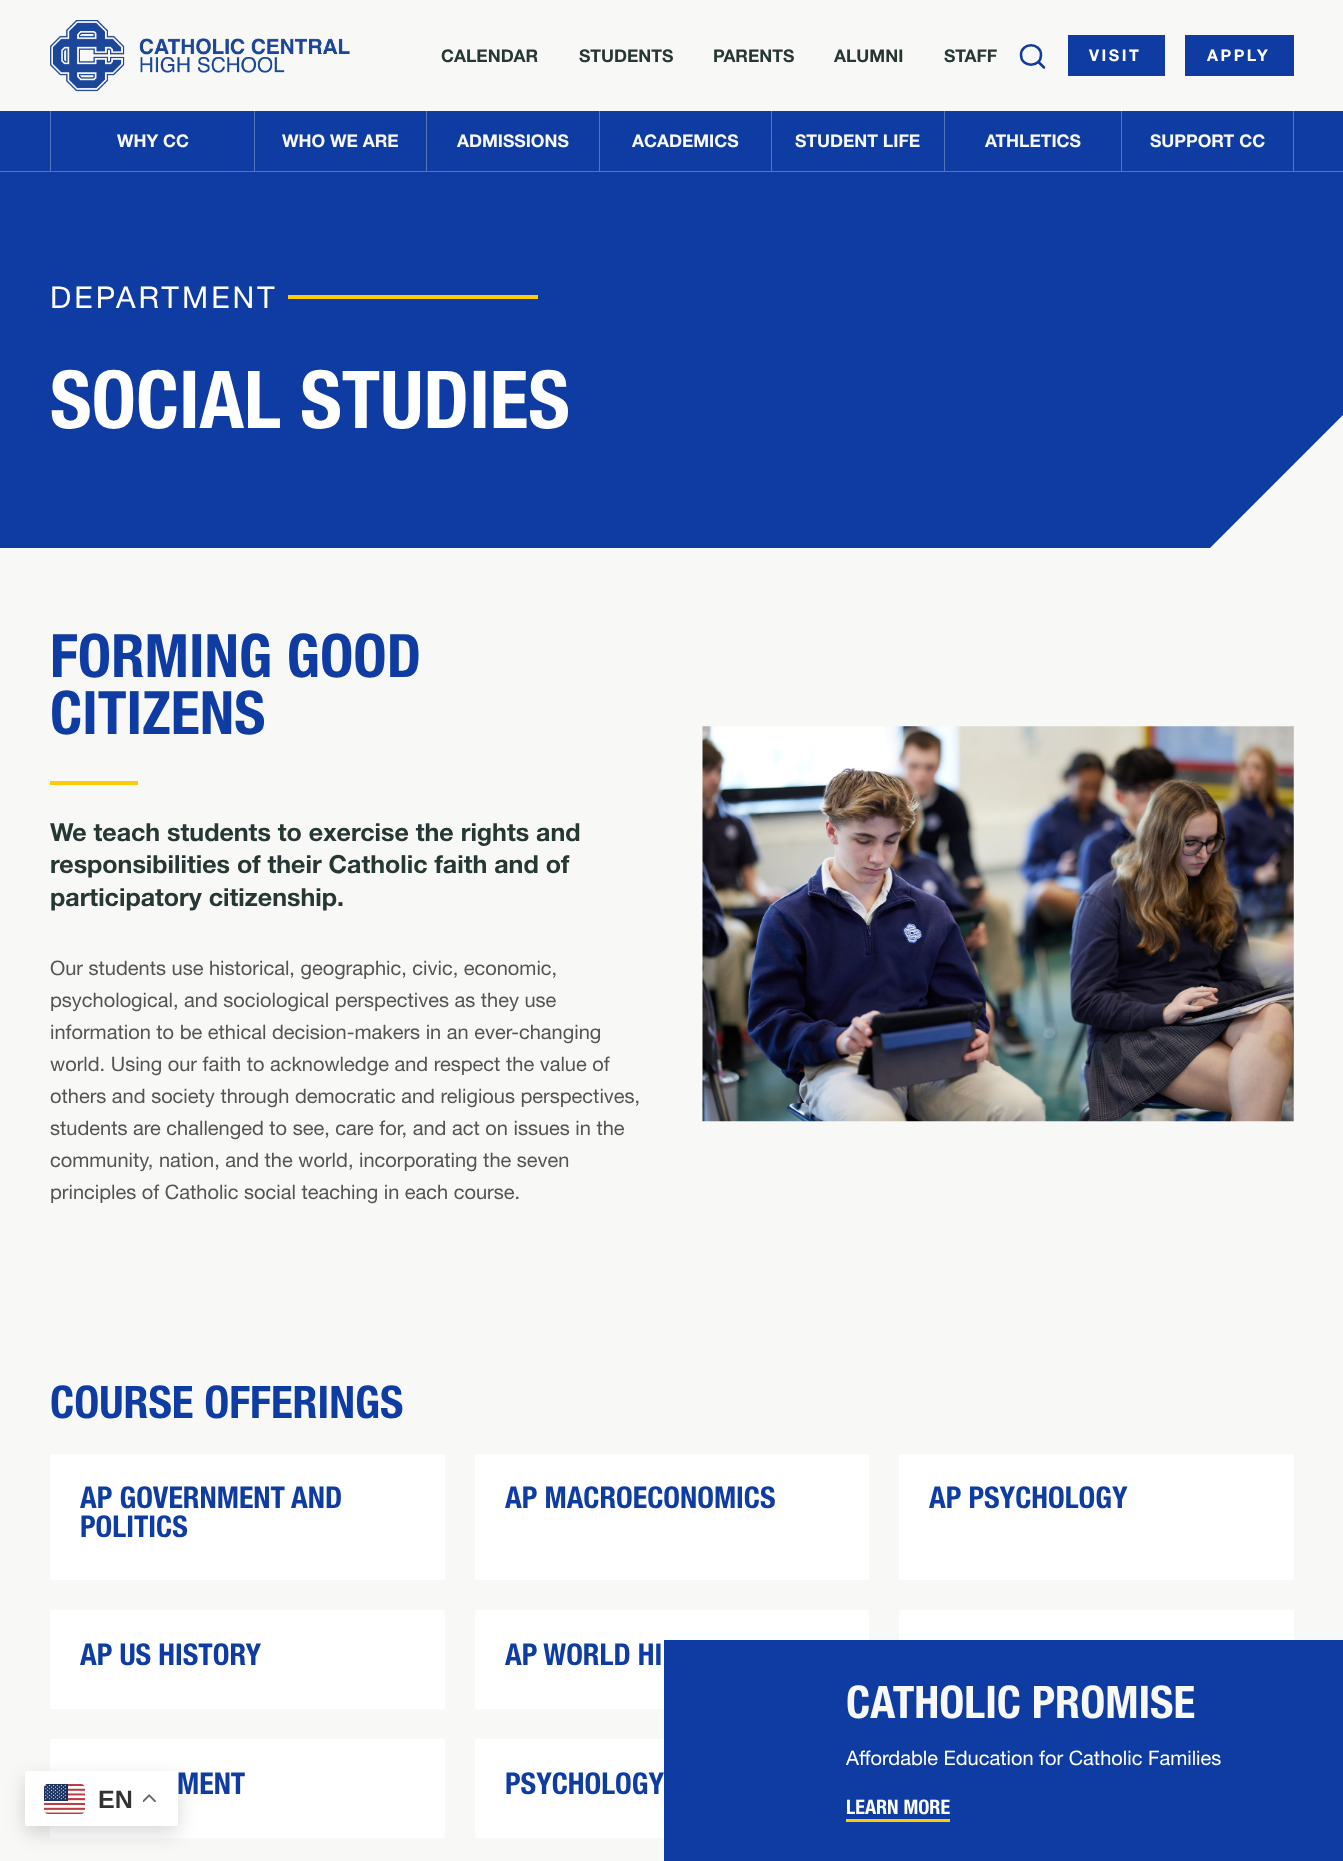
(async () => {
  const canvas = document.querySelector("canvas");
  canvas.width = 1343;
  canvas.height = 1861;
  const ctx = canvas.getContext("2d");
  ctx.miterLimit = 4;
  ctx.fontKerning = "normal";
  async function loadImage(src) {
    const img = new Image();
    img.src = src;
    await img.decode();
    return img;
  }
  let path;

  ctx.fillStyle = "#f8f8f6";
  ctx.fillRect(0, 0, 1343, 1861);
  ctx.drawImage(await loadImage("img/1.png"), 50, 20, 300, 72);
  path = new Path2D("M1044 67.5L1038.5 62M1041 55C1041 68 1021 68 1021 55C1021 42 1041 42 1041 55Z");
  ctx.strokeStyle = "#0e3ca2";
  ctx.lineWidth = 2.5;
  ctx.lineCap = "round";
  ctx.lineJoin = "round";
  ctx.stroke(path);
  for (const [x, y, w, h, color] of [
    [1068, 35, 97, 41, "#0e3ca2"],
    [1185, 35, 109, 41, "#0e3ca2"],
    [0, 111, 1343, 437, "#0e3ca2"],
    [0, 171, 1343, 1, "#5474bb"],
    [50, 111, 1, 60, "#5474bb"],
    [254, 111, 1, 60, "#5474bb"],
    [426, 111, 1, 60, "#5474bb"],
    [599, 111, 1, 60, "#5474bb"],
    [771, 111, 1, 60, "#5474bb"],
    [944, 111, 1, 60, "#5474bb"],
    [1293, 111, 1, 60, "#5474bb"],
    [1121, 111, 1, 60, "#5474bb"],
    [288, 295, 250, 4, "#ffcb05"],
  ]) {
    ctx.fillStyle = color;
    ctx.fillRect(x, y, w, h);
  }
  ctx.fillStyle = "#f8f8f6";
  path = new Path2D("M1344 548V414L1210 548Z");
  ctx.fill(path);
  ctx.fillStyle = "#ffcb05";
  ctx.fillRect(50, 781, 88, 4);
  ctx.drawImage(await loadImage("img/2.png"), 702, 726, 592, 396);
  for (const [x, y, w, h, color] of [
    [50, 1454, 395, 126, "#ffffff"],
    [475, 1454, 394, 126, "#ffffff"],
    [899, 1454, 395, 126, "#ffffff"],
    [899, 1610, 395, 30, "#ffffff"],
    [50, 1610, 395, 99, "#ffffff"],
    [475, 1610, 394, 99, "#ffffff"],
    [50, 1739, 395, 99, "#ffffff"],
    [475, 1739, 189, 99, "#ffffff"],
    [664, 1640, 679, 221, "#0e3ca2"],
    [846, 1819, 104, 3, "#ffcb05"],
  ]) {
    ctx.fillStyle = color;
    ctx.fillRect(x, y, w, h);
  }
  ctx.fillStyle = "rgba(0, 0, 0, 0.15)";
  ctx.filter = "blur(9.5px)";
  ctx.beginPath();
  ctx.roundRect(25, 1778, 153, 55, 2.5);
  ctx.fill();
  ctx.filter = "none";
  ctx.fillStyle = "#ffffff";
  ctx.beginPath();
  ctx.roundRect(25, 1771, 153, 55, 2.5);
  ctx.fill();
  ctx.drawImage(await loadImage("img/3.png"), 44, 1784, 41, 30);
  ctx.drawImage(await loadImage("img/4.png"), 143, 1794, 13, 9);
  ctx.font = "bold 17.5px 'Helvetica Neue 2'";
  ctx.fillStyle = "#263734";
  for (const [text, x, y] of [
    ["CALENDAR", 441, 62],
    ["STUDENTS", 579, 62],
    ["PARENTS", 713, 62],
    ["ALUMNI", 834, 62],
    ["STAFF", 944, 62],
  ]) {
    ctx.fillText(text, x, y);
  }
  ctx.letterSpacing = "2.5px";
  ctx.font = "bold 16px 'Helvetica Neue 2'";
  ctx.fillStyle = "#ffffff";
  ctx.fillText("VISIT", 1089, 61);
  ctx.fillText("APPLY", 1207, 61);
  ctx.letterSpacing = "0px";
  ctx.font = "bold 17.5px 'Helvetica Neue 2'";
  ctx.fillStyle = "#f8f8f6";
  for (const [text, x, y] of [
    ["WHY CC", 117, 147],
    ["WHO WE ARE", 282, 147],
    ["ADMISSIONS", 457, 147],
    ["ACADEMICS", 632, 147],
    ["STUDENT LIFE", 795, 147],
    ["ATHLETICS", 985, 147],
    ["SUPPORT CC", 1150, 147],
  ]) {
    ctx.fillText(text, x, y);
  }
  ctx.letterSpacing = "3.1px";
  ctx.font = "30px Helvetica Neue";
  ctx.fillStyle = "#ffffff";
  ctx.fillText("DEPARTMENT", 50, 308);
  ctx.letterSpacing = "0px";
  ctx.font = "bold 80px Helvetica Neue";
  ctx.fillText("SOCIAL STUDIES", 50, 428);
  ctx.font = "bold 60px Helvetica Neue";
  ctx.fillStyle = "#0e3ca2";
  ctx.fillText("FORMING GOOD", 50, 677);
  ctx.fillText("CITIZENS", 50, 734);
  ctx.font = "bold 25px 'Helvetica Neue 2'";
  ctx.fillStyle = "#263734";
  for (const [text, x, y] of [
    ["We teach students to exercise the rights and", 50, 841],
    ["responsibilities of their Catholic faith and of", 50, 873],
    ["participatory citizenship.", 50, 906],
  ]) {
    ctx.fillText(text, x, y);
  }
  ctx.font = "20px Helvetica Neue";
  ctx.fillStyle = "#545454";
  for (const [text, x, y] of [
    ["Our students use historical, geographic, civic, economic,", 50, 975],
    ["psychological, and sociological perspectives as they use", 50, 1007],
    ["information to be ethical decision-makers in an ever-changing", 50, 1039],
    ["world. Using our faith to acknowledge and respect the value of", 50, 1071],
    ["others and society through democratic and religious perspectives,", 50, 1103],
    ["students are challenged to see, care for, and act on issues in the", 50, 1135],
    ["community, nation, and the world, incorporating the seven", 50, 1167],
    ["principles of Catholic social teaching in each course.", 50, 1199],
  ]) {
    ctx.fillText(text, x, y);
  }
  ctx.font = "bold 45px Helvetica Neue";
  ctx.fillStyle = "#0e3ca2";
  ctx.fillText("COURSE OFFERINGS", 50, 1418);
  ctx.font = "bold 30px Helvetica Neue";
  for (const [text, x, y] of [
    ["AP GOVERNMENT AND", 80, 1508],
    ["POLITICS", 80, 1537],
    ["AP MACROECONOMICS", 505, 1508],
    ["AP PSYCHOLOGY", 929, 1508],
    ["AP US HISTORY", 80, 1665],
    ["AP WORLD HI", 505, 1665],
    ["MENT", 177, 1794],
    ["PSYCHOLOGY", 505, 1794],
  ]) {
    ctx.fillText(text, x, y);
  }
  ctx.font = "bold 45px Helvetica Neue";
  ctx.fillStyle = "#f8f8f6";
  ctx.fillText("CATHOLIC PROMISE", 846, 1718);
  ctx.font = "20px Helvetica Neue";
  ctx.fillStyle = "#ffffff";
  ctx.fillText("Affordable Education for Catholic Families", 846, 1765);
  ctx.font = "bold 20px Helvetica Neue";
  ctx.fillText("LEARN MORE", 846, 1814);
  ctx.font = "bold 25px Liberation Sans";
  ctx.fillStyle = "#333333";
  ctx.fillText("EN", 98, 1808);
})();
